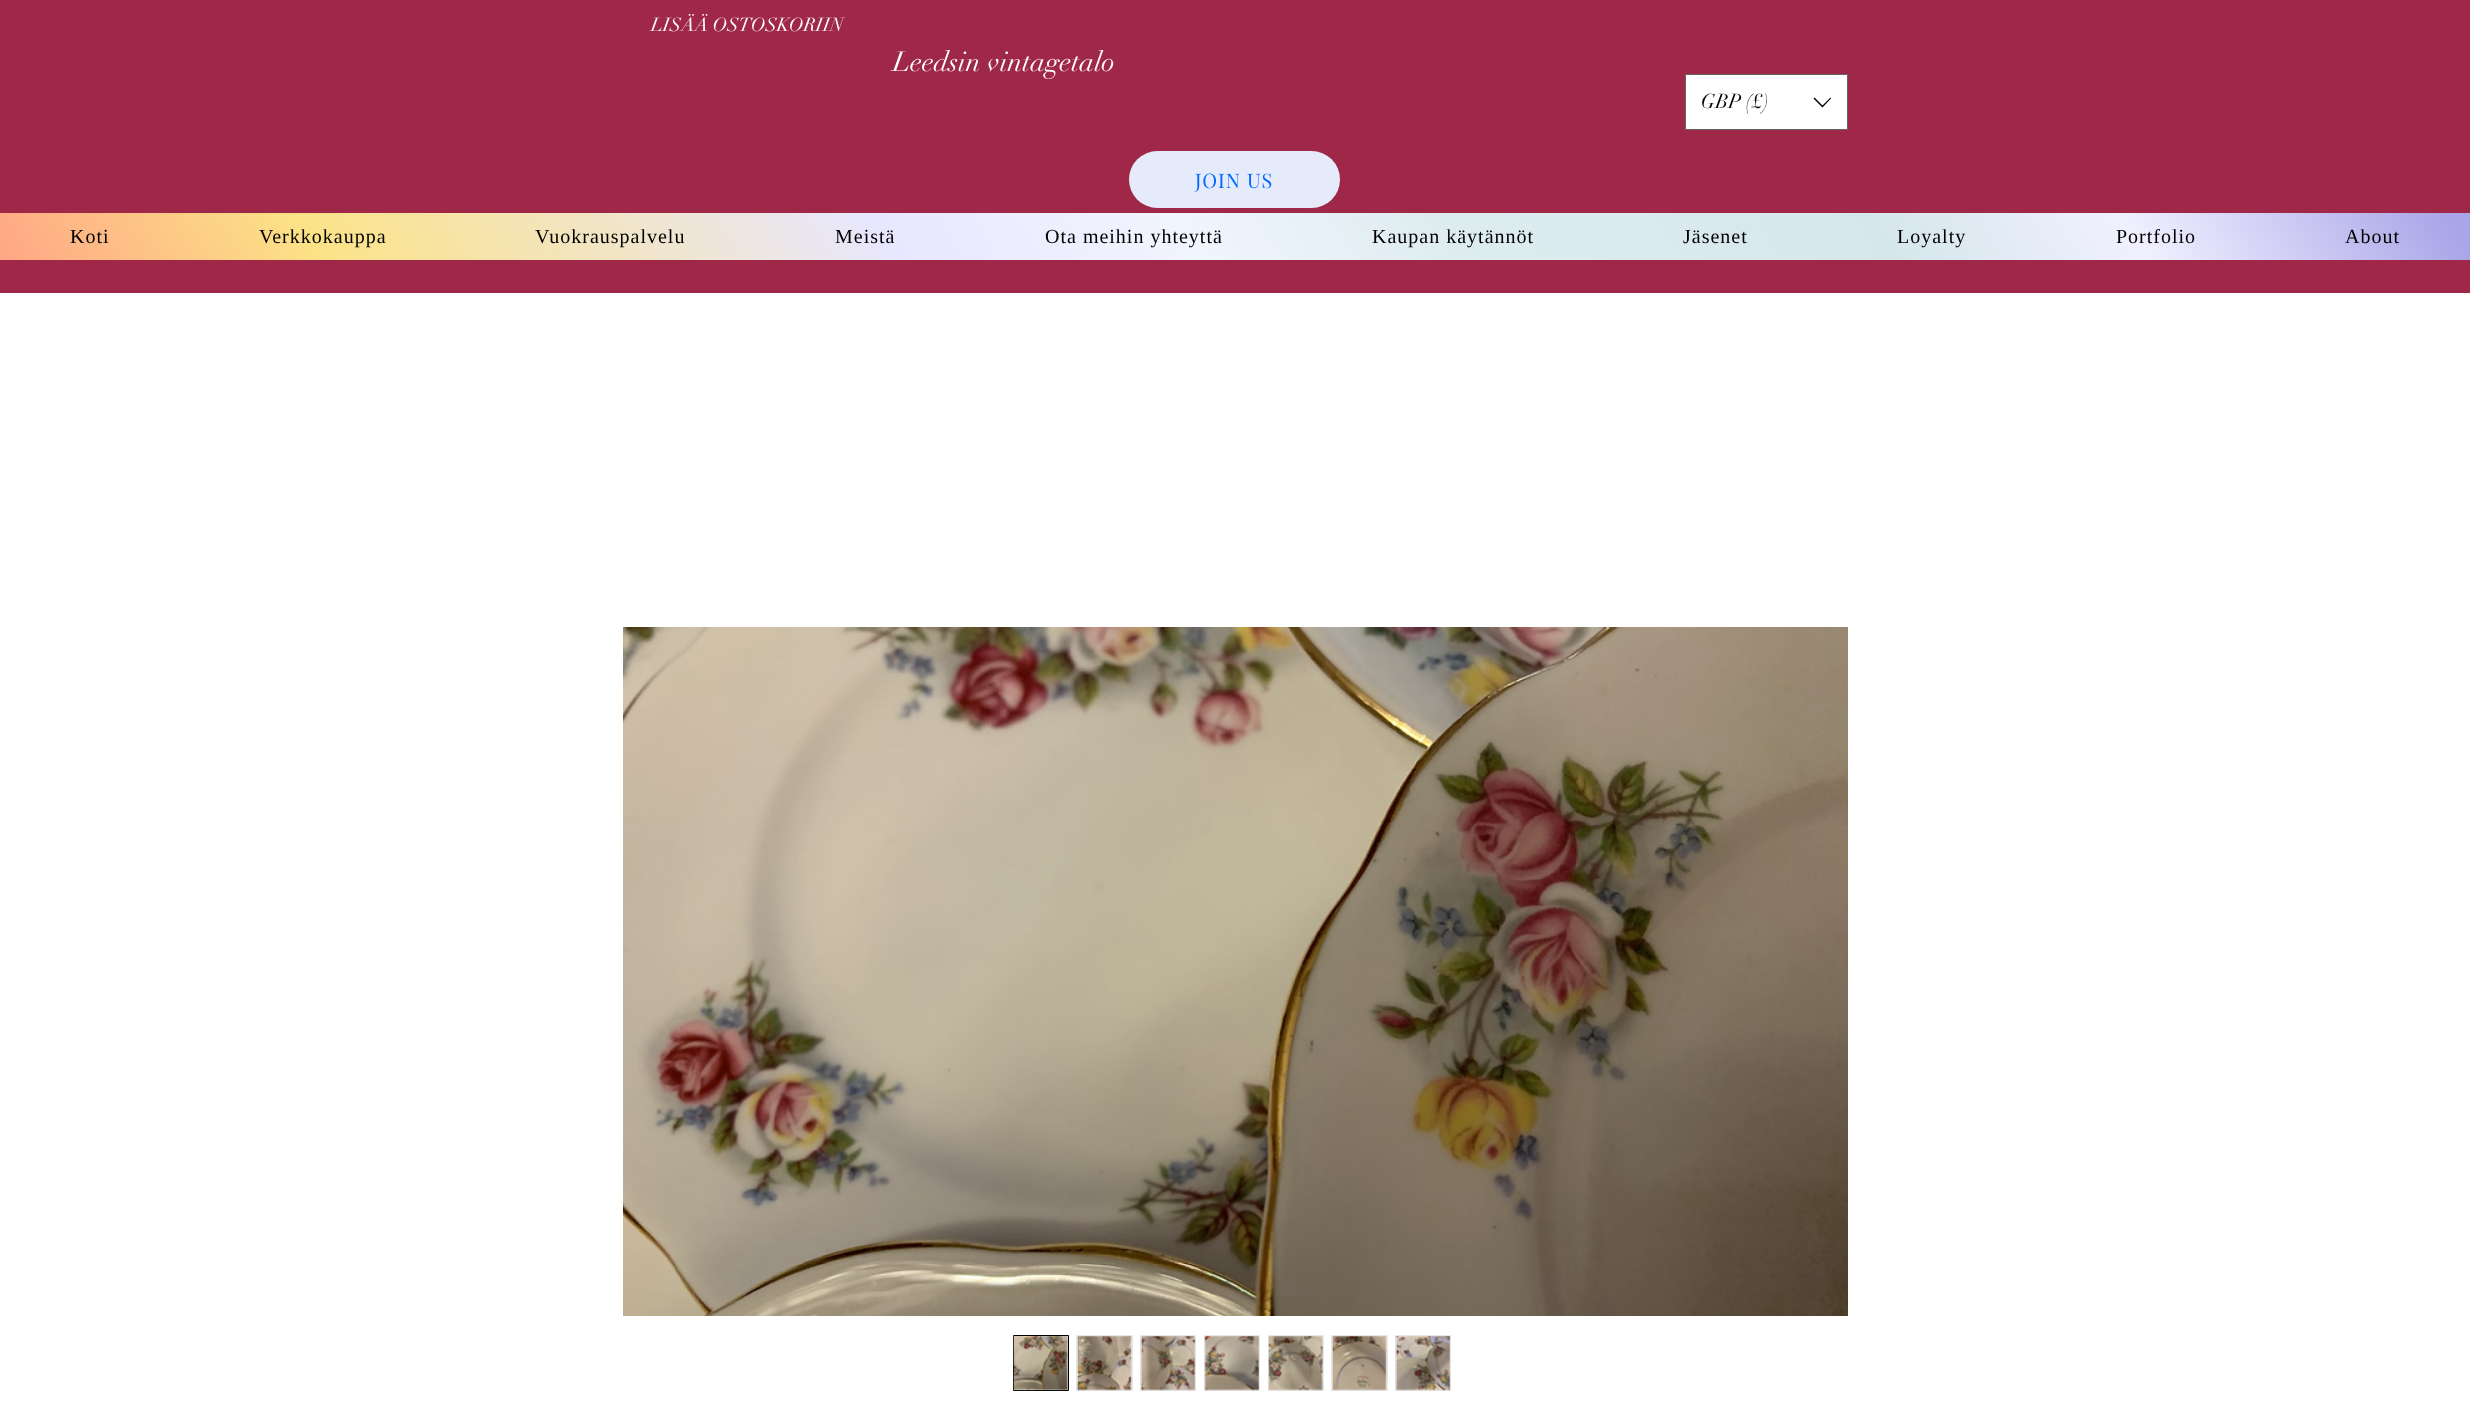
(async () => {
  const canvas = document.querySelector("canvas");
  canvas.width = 2470;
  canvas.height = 1410;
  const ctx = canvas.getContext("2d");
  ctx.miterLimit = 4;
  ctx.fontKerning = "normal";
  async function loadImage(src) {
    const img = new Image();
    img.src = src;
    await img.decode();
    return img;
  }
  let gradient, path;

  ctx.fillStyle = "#ffffff";
  ctx.fillRect(0, 0, 2470, 1410);
  ctx.fillStyle = "#9f2747";
  ctx.fillRect(0, 0, 2470, 293);
  ctx.fillStyle = "#ffffff";
  ctx.beginPath();
  ctx.rect(1685.5, 74.5, 162, 55);
  ctx.fill();
  ctx.strokeStyle = "#666666";
  ctx.stroke();
  ctx.fillStyle = "#000000";
  path = new Path2D("M1830.5 97.5L1831 98.5L1822.5 107.5L1813.5 98.5L1814.5 97.5L1822.5 105.5Z");
  ctx.fill(path, "evenodd");
  ctx.fillStyle = "#e5ebfa";
  ctx.beginPath();
  ctx.roundRect(1129, 151, 211, 57, 28.5);
  ctx.fill();
  gradient = ctx.createLinearGradient(336, 798, 2134, -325);
  gradient.addColorStop(0, "#ffa685");
  gradient.addColorStop(0.13, "#fce387");
  gradient.addColorStop(0.36, "#e8e7ff");
  gradient.addColorStop(0.48, "#f1f5fe");
  gradient.addColorStop(0.59, "#ddecef");
  gradient.addColorStop(0.76, "#d6e7ec");
  gradient.addColorStop(0.86, "#f1f0ff");
  gradient.addColorStop(0.99, "#a9a5e8");
  ctx.fillStyle = gradient;
  ctx.fillRect(0, 213, 2470, 47);
  ctx.drawImage(await loadImage("img/1.png"), 623, 627, 1225, 689);
  ctx.fillStyle = "#e8e6e6";
  ctx.beginPath();
  ctx.rect(1013.5, 1335.5, 55, 55);
  ctx.fill();
  ctx.strokeStyle = "#000000";
  ctx.stroke();
  ctx.drawImage(await loadImage("img/2.png"), 1013, 1336, 55, 55);
  ctx.fillRect(1076, 1335, 57, 56);
  ctx.drawImage(await loadImage("img/3.png"), 1077, 1336, 55, 55);
  ctx.fillRect(1140, 1335, 56, 56);
  ctx.drawImage(await loadImage("img/4.png"), 1140, 1336, 56, 55);
  ctx.fillRect(1204, 1335, 56, 56);
  ctx.drawImage(await loadImage("img/5.png"), 1204, 1336, 55, 55);
  ctx.fillRect(1268, 1335, 56, 56);
  ctx.drawImage(await loadImage("img/6.png"), 1268, 1336, 55, 55);
  ctx.fillRect(1331, 1335, 57, 56);
  ctx.drawImage(await loadImage("img/7.png"), 1332, 1336, 55, 55);
  ctx.fillRect(1395, 1335, 56, 56);
  ctx.drawImage(await loadImage("img/8.png"), 1395, 1336, 56, 55);
  ctx.font = "18.75px didot";
  ctx.fillStyle = "#ffffff";
  ctx.fillText("LISÄÄ OSTOSKORIIN", 651, 31);
  ctx.font = "27.5px didot";
  ctx.fillText("Leedsin vintagetalo", 893, 71);
  ctx.font = "20px didot";
  ctx.fillStyle = "#000000";
  ctx.fillText("GBP (£)", 1701, 108);
  ctx.letterSpacing = "1px";
  ctx.font = "20px Playfair Display";
  ctx.fillStyle = "#0069ff";
  ctx.fillText("JOIN US", 1195, 188);
  ctx.font = "20px Liberation Serif";
  ctx.fillStyle = "#000000";
  for (const [text, x, y] of [
    ["Koti", 70, 243],
    ["Verkkokauppa", 259, 243],
    ["Vuokrauspalvelu", 535, 243],
    ["Meistä", 835, 243],
    ["Ota meihin yhteyttä", 1045, 243],
    ["Kaupan käytännöt", 1372, 243],
    ["Jäsenet", 1683, 243],
    ["Loyalty", 1897, 243],
    ["Portfolio", 2116, 243],
    ["About", 2345, 243],
  ]) {
    ctx.fillText(text, x, y);
  }
})();
